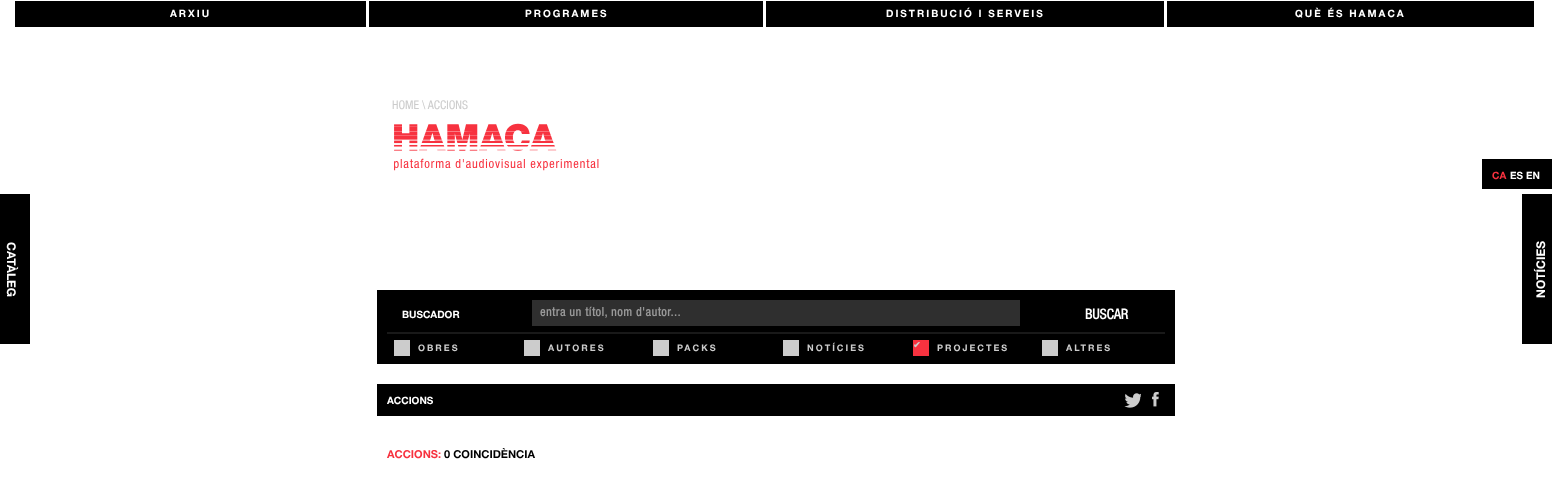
(async () => {
  const canvas = document.querySelector("canvas");
  canvas.width = 1552;
  canvas.height = 498;
  const ctx = canvas.getContext("2d");
  ctx.miterLimit = 4;
  ctx.fontKerning = "normal";
  async function loadImage(src) {
    const img = new Image();
    img.src = src;
    await img.decode();
    return img;
  }

  ctx.fillStyle = "#ffffff";
  ctx.fillRect(0, 0, 1552, 498);
  for (const [x, y, w, h, color] of [
    [15, 1, 351, 26, "#000000"],
    [369, 1, 394, 26, "#000000"],
    [766, 1, 398, 26, "#000000"],
    [1167, 1, 367, 26, "#000000"],
  ]) {
    ctx.fillStyle = color;
    ctx.fillRect(x, y, w, h);
  }
  ctx.drawImage(await loadImage("img/1.png"), 394, 123, 205, 48);
  for (const [x, y, w, h, color] of [
    [1482, 159, 70, 30, "#000000"],
    [0, 194, 30, 150, "#000000"],
    [1522, 194, 30, 150, "#000000"],
    [377, 290, 798, 74, "#000000"],
    [532, 300, 488, 26, "#2f2f2f"],
    [387, 332, 778, 2, "#191919"],
    [394, 340, 16, 16, "#cccccc"],
    [524, 340, 16, 16, "#cccccc"],
    [653, 340, 16, 16, "#cccccc"],
    [783, 340, 16, 16, "#cccccc"],
    [913, 340, 16, 16, "#f7323f"],
    [1042, 340, 16, 16, "#cccccc"],
    [377, 384, 798, 32, "#000000"],
  ]) {
    ctx.fillStyle = color;
    ctx.fillRect(x, y, w, h);
  }
  ctx.drawImage(await loadImage("img/2.png"), 1124, 393, 17, 15);
  ctx.drawImage(await loadImage("img/3.png"), 1152, 392, 7, 15);
  ctx.letterSpacing = "2px";
  ctx.font = "bold 10px Helvetica Neue";
  ctx.fillStyle = "#ffffff";
  for (const [text, x, y] of [
    ["ARXIU", 170, 17],
    ["PROGRAMES", 525, 17],
    ["DISTRIBUCIÓ I SERVEIS", 886, 17],
    ["QUÈ ÉS HAMACA", 1295, 17],
  ]) {
    ctx.fillText(text, x, y);
  }
  ctx.letterSpacing = "0px";
  ctx.font = "12px Helvetica Neue";
  ctx.fillStyle = "#cccccc";
  ctx.fillText("HOME \\ ACCIONS", 392, 109);
  ctx.font = "bold 10px Helvetica Neue";
  ctx.fillStyle = "#f7323f";
  ctx.fillText("CA", 1492, 179);
  ctx.fillStyle = "#ffffff";
  ctx.fillText("ES", 1510, 179);
  ctx.fillText("EN", 1526, 179);
  ctx.font = "bold 12px Helvetica Neue";
  ctx.save();
  ctx.translate(7, 242);
  ctx.rotate(90 * Math.PI / 180);
  ctx.fillText("CATÀLEG", 0, 0);
  ctx.restore();
  ctx.save();
  ctx.translate(1545, 298);
  ctx.rotate(-90 * Math.PI / 180);
  ctx.fillText("NOTÍCIES", 0, 0);
  ctx.restore();
  ctx.font = "bold 10px Helvetica Neue";
  ctx.fillText("BUSCADOR", 402, 318);
  ctx.letterSpacing = "0.6px";
  ctx.font = "bold 12px 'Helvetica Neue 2'";
  ctx.fillStyle = "#999999";
  ctx.fillText("entra un títol, nom d'autor...", 540, 316);
  ctx.letterSpacing = "0px";
  ctx.font = "bold 14px 'Helvetica Neue 2'";
  ctx.fillStyle = "#ffffff";
  ctx.fillText("BUSCAR", 1085, 319);
  ctx.letterSpacing = "2px";
  ctx.font = "bold 9px Helvetica Neue";
  ctx.fillStyle = "#cccccc";
  for (const [text, x, y] of [
    ["OBRES", 418, 351],
    ["AUTORES", 548, 351],
    ["PACKS", 677, 351],
    ["NOTÍCIES", 807, 351],
  ]) {
    ctx.fillText(text, x, y);
  }
  ctx.letterSpacing = "0px";
  ctx.font = "bold 9px DejaVu Sans";
  ctx.fillText("✔", 913, 348);
  ctx.letterSpacing = "2px";
  ctx.font = "bold 9px Helvetica Neue";
  ctx.fillText("PROJECTES", 937, 351);
  ctx.fillText("ALTRES", 1066, 351);
  ctx.letterSpacing = "0px";
  ctx.font = "bold 10px Helvetica Neue";
  ctx.fillStyle = "#ffffff";
  ctx.fillText("ACCIONS", 387, 404);
  ctx.font = "bold 11px Helvetica Neue";
  ctx.fillStyle = "#f7323f";
  ctx.fillText("ACCIONS:", 387, 458);
  ctx.fillStyle = "#000000";
  ctx.fillText("0 COINCIDÈNCIA", 444, 458);
})();
